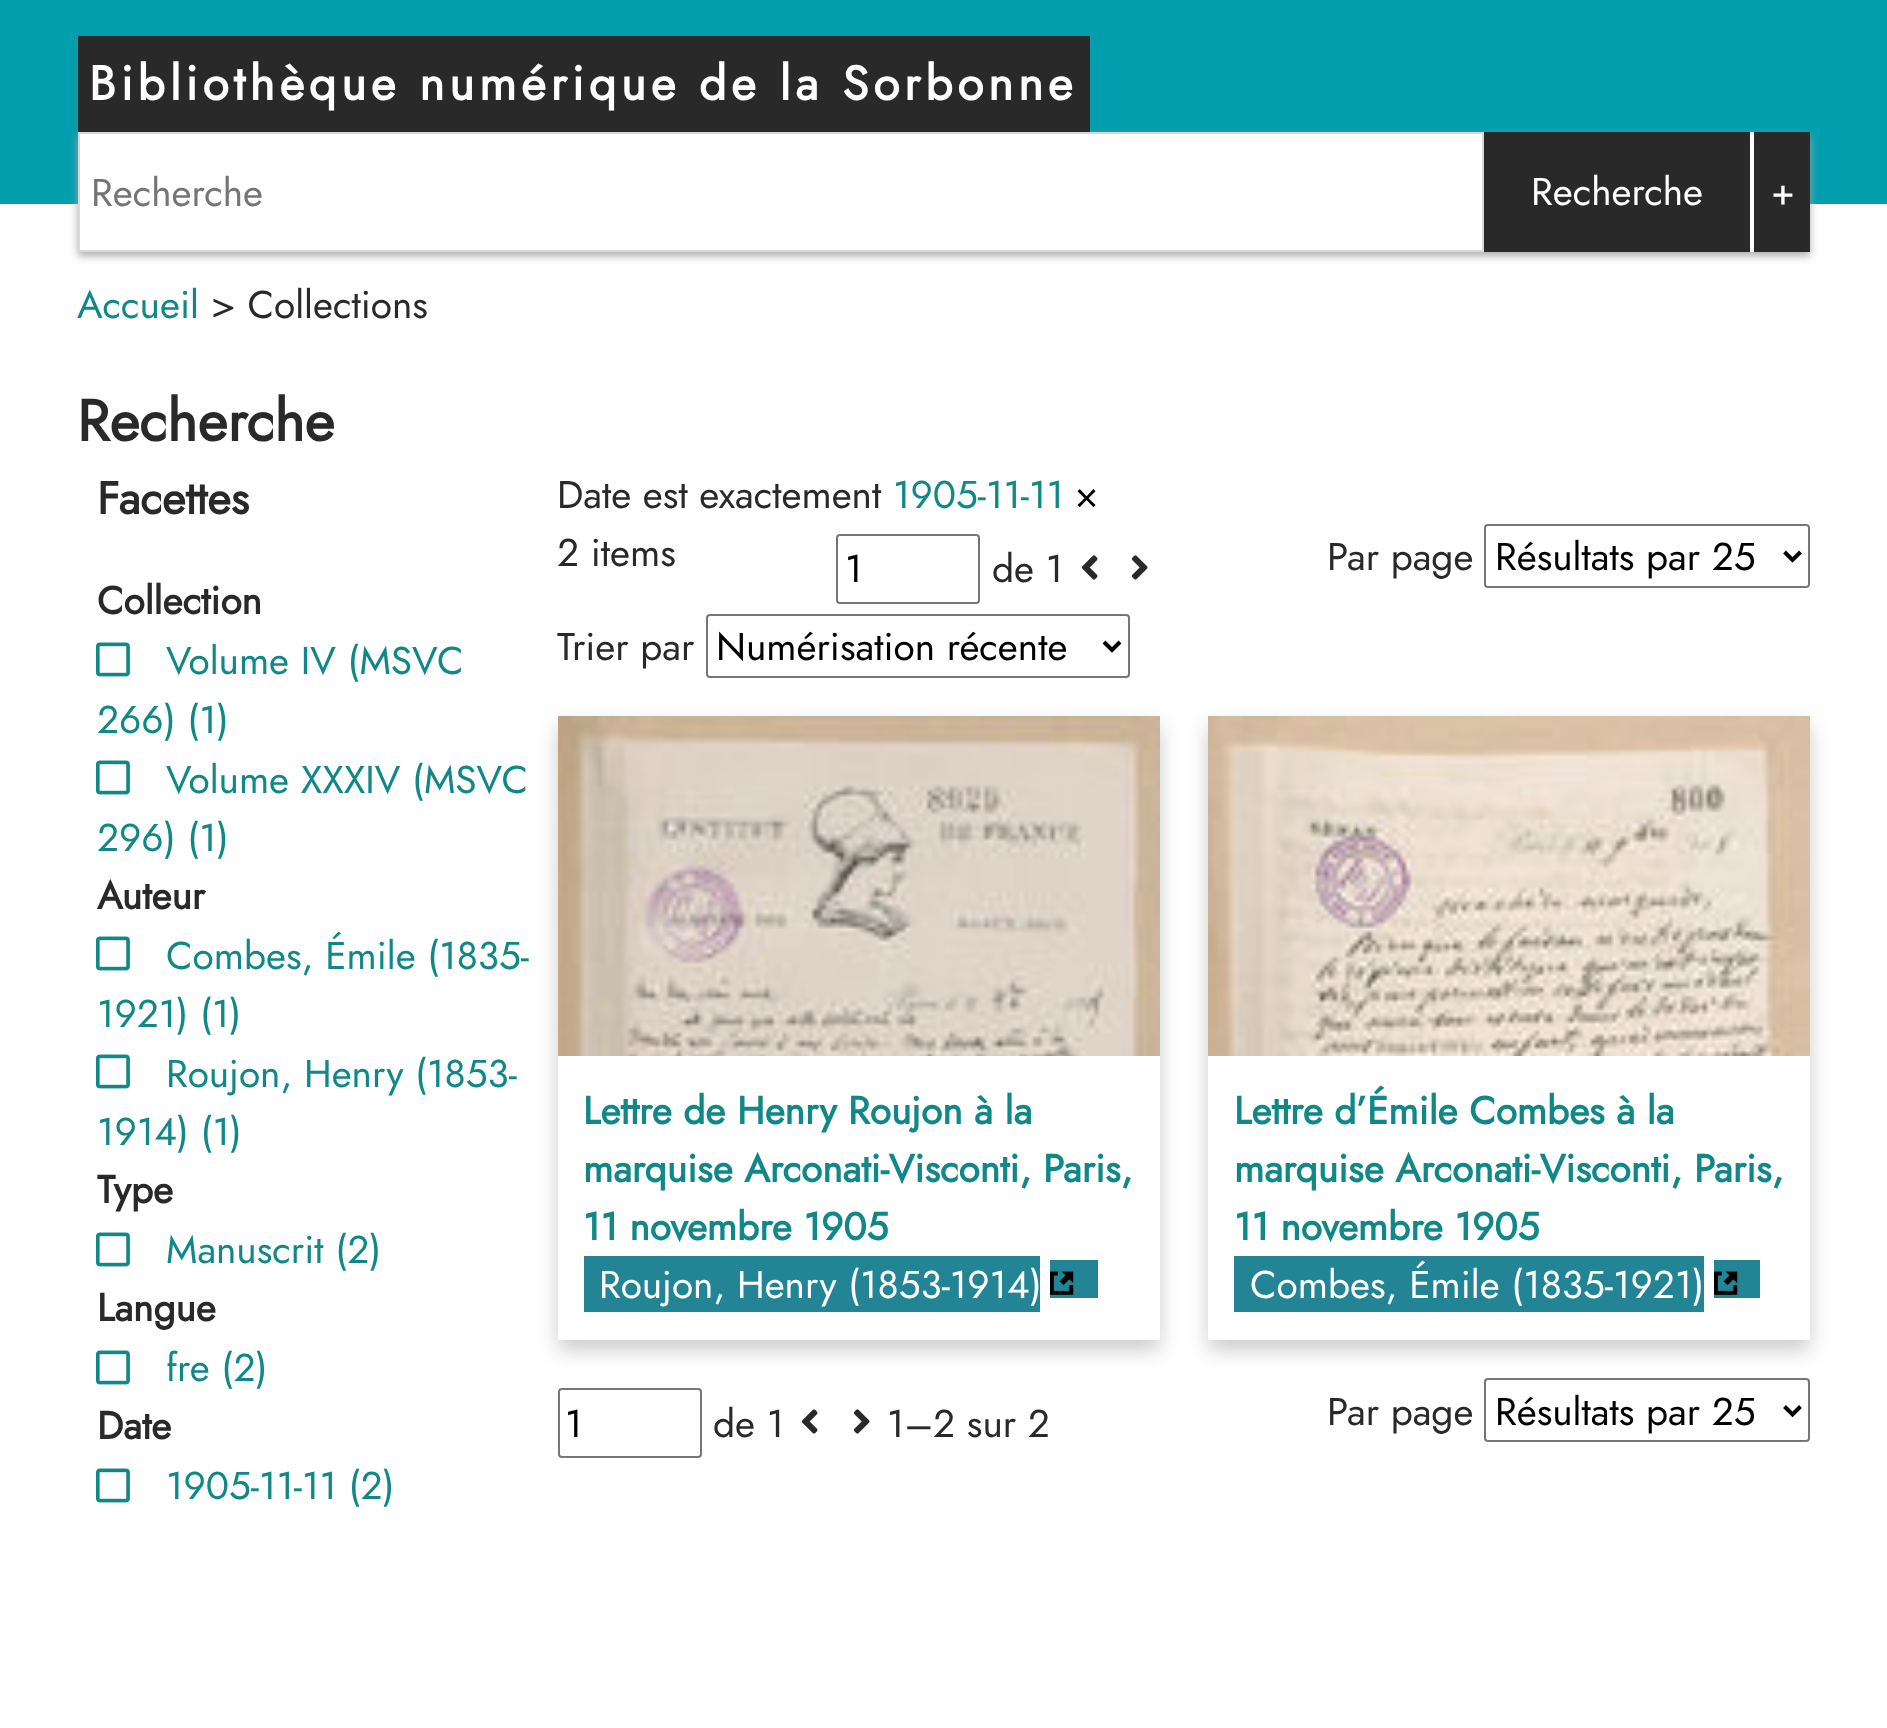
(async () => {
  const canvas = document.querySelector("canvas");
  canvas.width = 1887;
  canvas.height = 1728;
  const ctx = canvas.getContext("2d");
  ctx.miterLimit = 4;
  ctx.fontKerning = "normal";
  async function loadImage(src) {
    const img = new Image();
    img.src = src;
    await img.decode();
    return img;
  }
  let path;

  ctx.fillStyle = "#039fae";
  ctx.fillRect(0, 0, 1887, 1728);
  ctx.fillStyle = "#ffffff";
  ctx.fillRect(0, 204, 1887, 1524);
  ctx.fillStyle = "rgba(163, 163, 163, 0.9)";
  ctx.filter = "blur(4px)";
  ctx.beginPath();
  ctx.rect(78, 136, 1732, 120);
  ctx.fill();
  ctx.filter = "none";
  ctx.fillStyle = "#282928";
  ctx.fillRect(78, 36, 1012, 96);
  ctx.fillStyle = "#ffffff";
  ctx.beginPath();
  ctx.rect(79, 133, 1404, 118);
  ctx.fill();
  ctx.strokeStyle = "#d9d9d9";
  ctx.lineWidth = 2;
  ctx.stroke();
  for (const [x, y, w, h, color] of [
    [1484, 132, 266, 120, "#282928"],
    [1754, 132, 56, 120, "#282928"],
    [1750, 132, 4, 120, "#ffffff"],
  ]) {
    ctx.fillStyle = color;
    ctx.fillRect(x, y, w, h);
  }
  ctx.drawImage(await loadImage("img/1.png"), 96, 642, 34, 35);
  ctx.drawImage(await loadImage("img/1.png"), 96, 760, 34, 35);
  ctx.drawImage(await loadImage("img/1.png"), 96, 936, 34, 35);
  ctx.drawImage(await loadImage("img/1.png"), 96, 1054, 34, 35);
  ctx.drawImage(await loadImage("img/1.png"), 96, 1232, 34, 35);
  ctx.drawImage(await loadImage("img/1.png"), 96, 1350, 34, 35);
  ctx.drawImage(await loadImage("img/1.png"), 96, 1468, 34, 35);
  ctx.beginPath();
  ctx.roundRect(837, 535, 142, 68, 3);
  ctx.strokeStyle = "#767676";
  ctx.stroke();
  ctx.drawImage(await loadImage("img/2.png"), 1081, 555, 17, 25);
  ctx.drawImage(await loadImage("img/3.png"), 1131, 555, 17, 25);
  ctx.beginPath();
  ctx.roundRect(1485, 525, 324, 62, 3);
  ctx.stroke();
  path = new Path2D("M1784.5 552L1792.5 560L1800.5 552");
  ctx.strokeStyle = "#000000";
  ctx.lineWidth = 4;
  ctx.stroke(path);
  ctx.beginPath();
  ctx.roundRect(707, 615, 422, 62, 3);
  ctx.strokeStyle = "#767676";
  ctx.lineWidth = 2;
  ctx.stroke();
  path = new Path2D("M1104 642L1112 650L1120 642");
  ctx.strokeStyle = "#000000";
  ctx.lineWidth = 4;
  ctx.stroke(path);
  ctx.save();
  path = new Path2D("M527 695H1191V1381H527ZM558 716H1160V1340H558Z");
  ctx.clip(path, "evenodd");
  ctx.fillStyle = "rgba(0, 0, 0, 0.2)";
  ctx.filter = "blur(10px)";
  ctx.beginPath();
  ctx.rect(558, 726, 602, 624);
  ctx.fill();
  ctx.filter = "none";
  ctx.restore();
  ctx.drawImage(await loadImage("img/4.png"), 558, 716, 602, 340);
  ctx.fillStyle = "#228494";
  ctx.fillRect(584, 1256, 456, 56);
  ctx.fillRect(1050, 1260, 48, 38);
  ctx.drawImage(await loadImage("img/5.png"), 1050, 1271, 24, 24);
  ctx.save();
  path = new Path2D("M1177 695H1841V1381H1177ZM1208 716H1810V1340H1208Z");
  ctx.clip(path, "evenodd");
  ctx.fillStyle = "rgba(0, 0, 0, 0.2)";
  ctx.filter = "blur(10px)";
  ctx.beginPath();
  ctx.rect(1208, 726, 602, 624);
  ctx.fill();
  ctx.filter = "none";
  ctx.restore();
  ctx.drawImage(await loadImage("img/6.png"), 1208, 716, 602, 340);
  ctx.fillRect(1234, 1256, 470, 56);
  ctx.fillRect(1714, 1260, 46, 38);
  ctx.drawImage(await loadImage("img/5.png"), 1714, 1271, 24, 24);
  ctx.beginPath();
  ctx.roundRect(559, 1389, 142, 68, 3);
  ctx.strokeStyle = "#767676";
  ctx.lineWidth = 2;
  ctx.stroke();
  ctx.drawImage(await loadImage("img/2.png"), 801, 1409, 17, 25);
  ctx.drawImage(await loadImage("img/3.png"), 853, 1409, 17, 25);
  ctx.beginPath();
  ctx.roundRect(1485, 1379, 324, 62, 3);
  ctx.stroke();
  path = new Path2D("M1784.5 1406.5L1792.5 1414.5L1800.5 1406.5");
  ctx.strokeStyle = "#000000";
  ctx.lineWidth = 4;
  ctx.stroke(path);
  ctx.letterSpacing = "4.7px";
  ctx.font = "bold 47.95px Jost";
  ctx.fillStyle = "#ffffff";
  ctx.fillText("Bibliothèque numérique de la Sorbonne", 89, 100);
  ctx.letterSpacing = "0px";
  ctx.font = "38.75px Jost";
  ctx.fillStyle = "#757575";
  ctx.fillText("Recherche", 91, 206);
  ctx.fillStyle = "#ffffff";
  ctx.fillText("Recherche", 1531, 205);
  ctx.fillText("+", 1771, 205);
  ctx.fillStyle = "#118888";
  ctx.fillText("Accueil", 77, 318);
  ctx.fillStyle = "#282928";
  ctx.fillText("> Collections", 211, 318);
  ctx.font = "bold 58px Jost";
  ctx.fillText("Recherche", 77, 441);
  ctx.font = "bold 45.5px Jost";
  ctx.fillText("Facettes", 97, 514);
  ctx.font = "bold 38.75px Jost";
  ctx.fillText("Collection", 97, 614);
  ctx.font = "38.75px Jost";
  ctx.fillStyle = "#118888";
  for (const [text, x, y] of [
    ["Volume IV (MSVC", 166, 674],
    ["266) (1)", 97, 733],
    ["Volume XXXIV (MSVC", 166, 793],
    ["296) (1)", 97, 851],
  ]) {
    ctx.fillText(text, x, y);
  }
  ctx.font = "bold 38.75px Jost";
  ctx.fillStyle = "#282928";
  ctx.fillText("Auteur", 97, 909);
  ctx.font = "38.75px Jost";
  ctx.fillStyle = "#118888";
  for (const [text, x, y] of [
    ["Combes, Émile (1835-", 166, 969],
    ["1921) (1)", 97, 1027],
    ["Roujon, Henry (1853-", 166, 1087],
    ["1914) (1)", 97, 1145],
  ]) {
    ctx.fillText(text, x, y);
  }
  ctx.font = "bold 38.75px Jost";
  ctx.fillStyle = "#282928";
  ctx.fillText("Type", 97, 1203);
  ctx.font = "38.75px Jost";
  ctx.fillStyle = "#118888";
  ctx.fillText("Manuscrit (2)", 166, 1263);
  ctx.font = "bold 38.75px Jost";
  ctx.fillStyle = "#282928";
  ctx.fillText("Langue", 97, 1321);
  ctx.font = "38.75px Jost";
  ctx.fillStyle = "#118888";
  ctx.fillText("fre (2)", 166, 1381);
  ctx.font = "bold 38.75px Jost";
  ctx.fillStyle = "#282928";
  ctx.fillText("Date", 97, 1439);
  ctx.font = "38.75px Jost";
  ctx.fillStyle = "#118888";
  ctx.fillText("1905-11-11 (2)", 166, 1499);
  ctx.fillStyle = "#282928";
  ctx.fillText("Date est exactement", 557, 508);
  ctx.fillStyle = "#118888";
  ctx.fillText("1905-11-11", 893, 508);
  ctx.fillStyle = "#000000";
  ctx.fillText("×", 1075, 508);
  ctx.fillStyle = "#282928";
  ctx.fillText("2 items", 557, 566);
  ctx.fillStyle = "#000000";
  ctx.fillText("1", 845, 582);
  ctx.fillStyle = "#282928";
  ctx.fillText("de 1", 992, 582);
  ctx.fillText("Par page", 1327, 570);
  ctx.fillStyle = "#000000";
  ctx.fillText("Résultats par 25", 1495, 570);
  ctx.fillStyle = "#282928";
  ctx.fillText("Trier par", 557, 660);
  ctx.fillStyle = "#000000";
  ctx.fillText("Numérisation récente", 716, 660);
  ctx.font = "bold 38.75px Jost";
  ctx.fillStyle = "#118888";
  for (const [text, x, y] of [
    ["Lettre de Henry Roujon à la", 583, 1124],
    ["marquise Arconati-Visconti, Paris,", 583, 1182],
    ["11 novembre 1905", 583, 1240],
  ]) {
    ctx.fillText(text, x, y);
  }
  ctx.font = "38.75px Jost";
  ctx.fillStyle = "#ffffff";
  ctx.fillText("Roujon, Henry (1853-1914)", 599, 1298);
  ctx.font = "bold 38.75px Jost";
  ctx.fillStyle = "#118888";
  for (const [text, x, y] of [
    ["Lettre d’Émile Combes à la", 1234, 1124],
    ["marquise Arconati-Visconti, Paris,", 1234, 1182],
    ["11 novembre 1905", 1234, 1240],
  ]) {
    ctx.fillText(text, x, y);
  }
  ctx.font = "38.75px Jost";
  ctx.fillStyle = "#ffffff";
  ctx.fillText("Combes, Émile (1835-1921)", 1250, 1298);
  ctx.fillStyle = "#000000";
  ctx.fillText("1", 565, 1437);
  ctx.fillStyle = "#282928";
  for (const [text, x, y] of [
    ["de 1", 713, 1437],
    ["1–2 sur 2", 887, 1437],
    ["Par page", 1327, 1425],
  ]) {
    ctx.fillText(text, x, y);
  }
  ctx.fillStyle = "#000000";
  ctx.fillText("Résultats par 25", 1495, 1425);
})();
